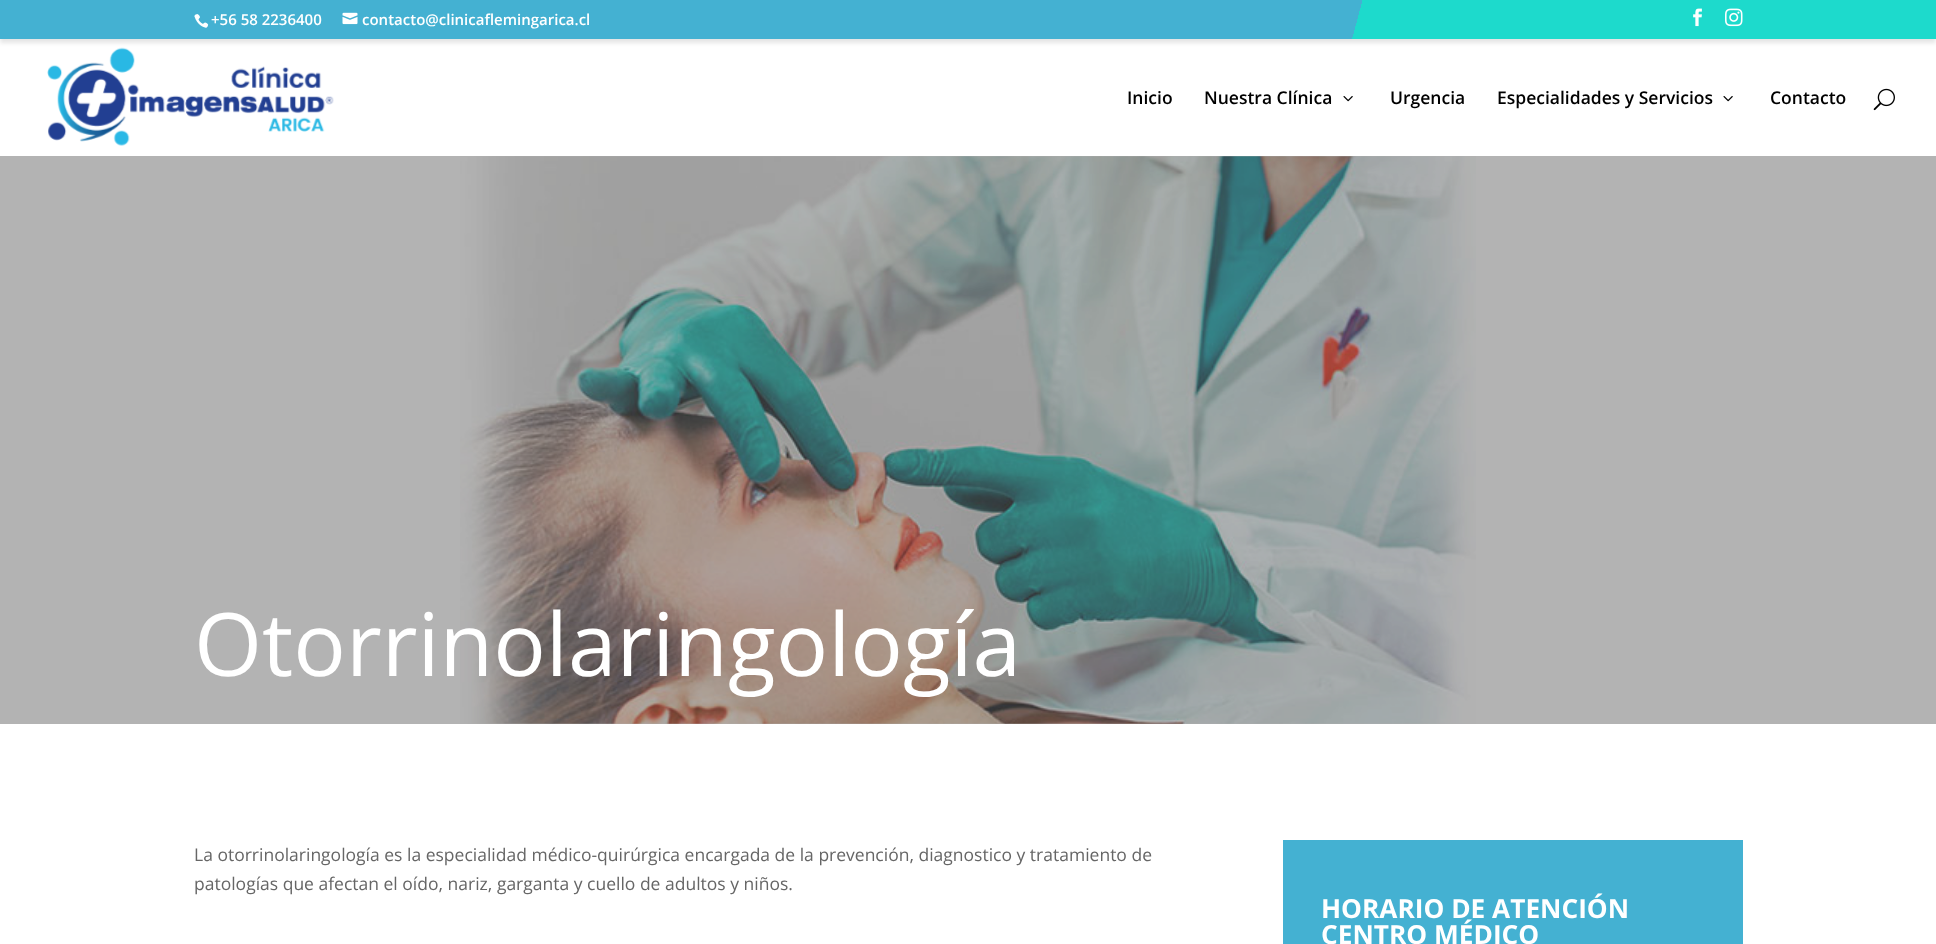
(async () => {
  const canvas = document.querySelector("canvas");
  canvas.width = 1936;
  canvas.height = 944;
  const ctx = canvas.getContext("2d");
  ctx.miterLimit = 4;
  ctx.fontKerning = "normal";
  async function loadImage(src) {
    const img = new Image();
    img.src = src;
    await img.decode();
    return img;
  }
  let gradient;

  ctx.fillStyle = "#ffffff";
  ctx.fillRect(0, 0, 1936, 944);
  ctx.drawImage(await loadImage("img/5.png"), 47, 47, 287, 99);
  ctx.fillStyle = "rgba(0, 0, 0, 0.1)";
  ctx.filter = "blur(2px)";
  ctx.beginPath();
  ctx.rect(0, 4, 1936, 39);
  ctx.fill();
  ctx.filter = "none";
  gradient = ctx.createLinearGradient(60, -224, 1876, 263);
  gradient.addColorStop(0.7, "#44b1d2");
  gradient.addColorStop(0.7, "#1ddacc");
  ctx.fillStyle = gradient;
  ctx.fillRect(0, 0, 1936, 39);
  ctx.drawImage(await loadImage("img/1.png"), 194, 14, 15, 14);
  ctx.drawImage(await loadImage("img/2.png"), 342, 12, 16, 13);
  ctx.drawImage(await loadImage("img/3.png"), 1693, 8, 9, 19);
  ctx.drawImage(await loadImage("img/4.png"), 1725, 8, 18, 19);
  ctx.drawImage(await loadImage("img/6.png"), 1343, 96, 10, 6);
  ctx.drawImage(await loadImage("img/6.png"), 1723, 96, 10, 6);
  ctx.drawImage(await loadImage("img/7.png"), 1873, 88, 22, 23);
  ctx.fillStyle = "#b3b3b3";
  ctx.fillRect(0, 156, 1936, 568);
  ctx.drawImage(await loadImage("img/8.png"), 460, 156, 1016, 568);
  ctx.fillStyle = "#44b1d2";
  ctx.fillRect(1283, 840, 460, 104);
  ctx.font = "600 15px Open Sans";
  ctx.fillStyle = "#ffffff";
  ctx.fillText("+56 58 2236400", 211, 25);
  ctx.fillText("contacto@clinicaflemingarica.cl", 362, 25);
  ctx.font = "600 17.5px Open Sans";
  ctx.fillStyle = "#000000";
  for (const [text, x, y] of [
    ["Inicio", 1127, 104],
    ["Nuestra Clínica", 1204, 104],
    ["Urgencia", 1390, 104],
    ["Especialidades y Servicios", 1497, 104],
    ["Contacto", 1770, 104],
  ]) {
    ctx.fillText(text, x, y);
  }
  ctx.font = "87.5px Open Sans";
  ctx.fillStyle = "#ffffff";
  ctx.fillText("Otorrinolaringología", 194, 676);
  ctx.font = "17.5px Open Sans";
  ctx.fillStyle = "#666666";
  ctx.fillText("La otorrinolaringología es la especialidad médico-quirúrgica encargada de la prevención, diagnostico y tratamiento de", 194, 861);
  ctx.fillText("patologías que afectan el oído, nariz, garganta y cuello de adultos y niños.", 194, 890);
  ctx.font = "bold 26.25px Open Sans";
  ctx.fillStyle = "#ffffff";
  ctx.fillText("HORARIO DE ATENCIÓN", 1321, 918);
  ctx.fillText("CENTRO MÉDICO", 1321, 944);
})();
